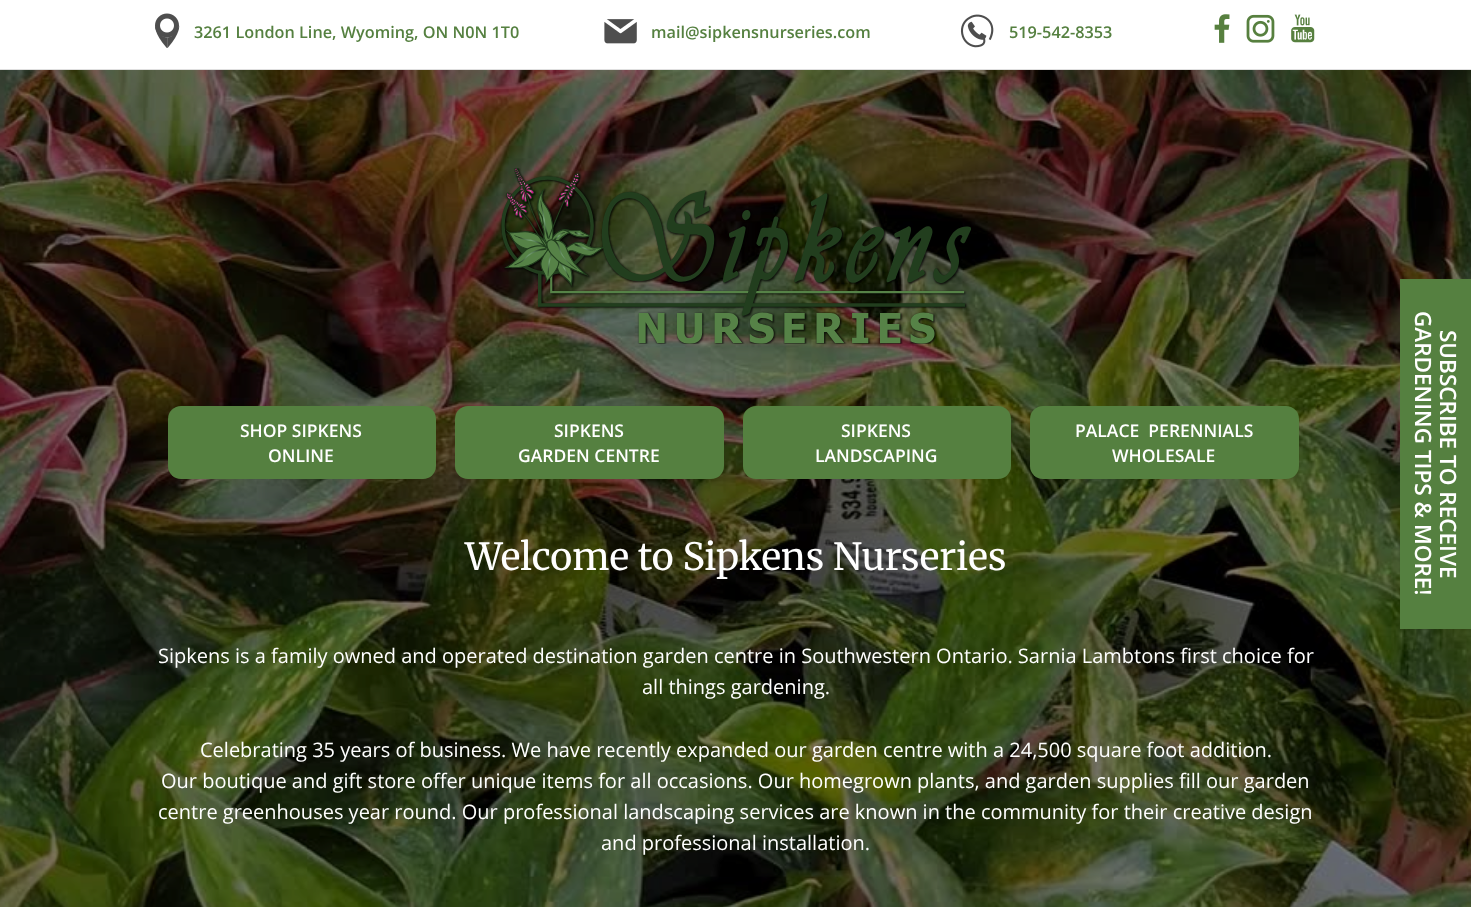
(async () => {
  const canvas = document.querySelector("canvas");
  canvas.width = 1471;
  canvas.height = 907;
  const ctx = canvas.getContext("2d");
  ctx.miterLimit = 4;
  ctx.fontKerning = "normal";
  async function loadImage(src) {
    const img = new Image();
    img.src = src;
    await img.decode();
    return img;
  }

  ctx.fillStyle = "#ffffff";
  ctx.fillRect(0, 0, 1471, 907);
  ctx.fillStyle = "#dfdfdf";
  ctx.fillRect(0, 69, 1471, 1);
  ctx.drawImage(await loadImage("img/1.png"), 155, 13, 25, 35);
  ctx.drawImage(await loadImage("img/2.png"), 604, 19, 33, 25);
  ctx.drawImage(await loadImage("img/3.png"), 960, 14, 34, 34);
  ctx.drawImage(await loadImage("img/4.png"), 1214, 14, 16, 29);
  ctx.drawImage(await loadImage("img/5.png"), 1246, 14, 29, 29);
  ctx.drawImage(await loadImage("img/6.png"), 1291, 14, 24, 29);
  ctx.drawImage(await loadImage("img/7.png"), 0, 70, 1471, 837);
  ctx.drawImage(await loadImage("img/8.png"), 501, 168, 470, 176);
  ctx.fillStyle = "#558040";
  ctx.beginPath();
  ctx.roundRect(168, 406, 268, 73, 13);
  ctx.fill();
  ctx.beginPath();
  ctx.roundRect(455, 406, 269, 73, 13);
  ctx.fill();
  ctx.beginPath();
  ctx.roundRect(743, 406, 268, 73, 13);
  ctx.fill();
  ctx.beginPath();
  ctx.roundRect(1030, 406, 269, 73, 13);
  ctx.fill();
  ctx.fillRect(1400, 279, 71, 350);
  ctx.font = "600 16.25px Open Sans";
  for (const [text, x, y] of [
    ["3261 London Line, Wyoming, ON N0N 1T0", 194, 38],
    ["mail@sipkensnurseries.com", 651, 38],
    ["519-542-8353", 1009, 38],
  ]) {
    ctx.fillText(text, x, y);
  }
  ctx.font = "600 17.5px Open Sans";
  ctx.fillStyle = "#ffffff";
  for (const [text, x, y] of [
    ["SHOP SIPKENS", 240, 437],
    ["ONLINE", 268, 462],
    ["SIPKENS", 554, 437],
    ["GARDEN CENTRE", 518, 462],
    ["SIPKENS", 841, 437],
    ["LANDSCAPING", 815, 462],
    ["PALACE  PERENNIALS", 1075, 437],
    ["WHOLESALE", 1112, 462],
  ]) {
    ctx.fillText(text, x, y);
  }
  ctx.font = "37.5px Merriweather";
  ctx.fillText("Welcome to Sipkens Nurseries", 465, 570);
  ctx.font = "20px Open Sans";
  for (const [text, x, y] of [
    ["Sipkens is a family owned and operated destination garden centre in Southwestern Ontario. Sarnia Lambtons first choice for", 158, 663],
    ["all things gardening.", 642, 694],
    ["Celebrating 35 years of business. We have recently expanded our garden centre with a 24,500 square foot addition.", 200, 757],
    ["Our boutique and gift store offer unique items for all occasions. Our homegrown plants, and garden supplies fill our garden", 161, 788],
    ["centre greenhouses year round. Our professional landscaping services are known in the community for their creative design", 158, 819],
    ["and professional installation.", 601, 850],
  ]) {
    ctx.fillText(text, x, y);
  }
  ctx.font = "600 22.5px Open Sans";
  ctx.save();
  ctx.translate(1415, 311);
  ctx.rotate(90 * Math.PI / 180);
  ctx.fillText("GARDENING TIPS & MORE!", 0, 0);
  ctx.restore();
  ctx.save();
  ctx.translate(1440, 330);
  ctx.rotate(90 * Math.PI / 180);
  ctx.fillText("SUBSCRIBE TO RECEIVE", 0, 0);
  ctx.restore();
})();
